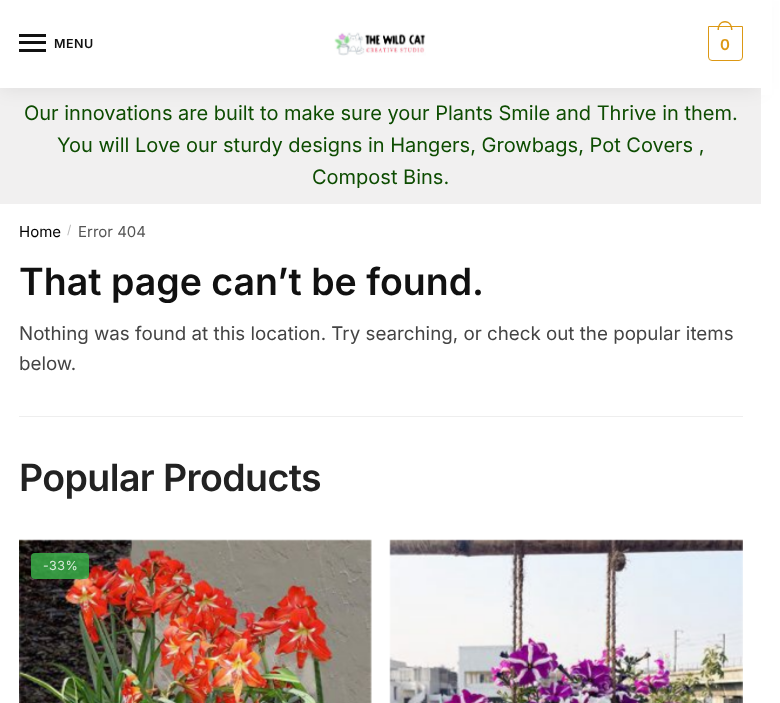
(async () => {
  const canvas = document.querySelector("canvas");
  canvas.width = 780;
  canvas.height = 703;
  const ctx = canvas.getContext("2d");
  ctx.miterLimit = 4;
  ctx.fontKerning = "normal";
  async function loadImage(src) {
    const img = new Image();
    img.src = src;
    await img.decode();
    return img;
  }
  let path;

  ctx.fillStyle = "#ffffff";
  ctx.fillRect(0, 0, 780, 703);
  ctx.fillStyle = "#f1f0f0";
  ctx.fillRect(0, 88, 761, 116);
  ctx.fillStyle = "rgba(0, 0, 0, 0.08)";
  ctx.filter = "blur(9.5px)";
  ctx.beginPath();
  ctx.rect(0, 1, 761, 88);
  ctx.fill();
  ctx.filter = "none";
  for (const [x, y, w, h, color] of [
    [0, 0, 761, 88, "#ffffff"],
    [19, 34, 27, 3, "#111111"],
    [19, 41, 27, 3, "#111111"],
    [19, 49, 27, 3, "#111111"],
  ]) {
    ctx.fillStyle = color;
    ctx.fillRect(x, y, w, h);
  }
  ctx.drawImage(await loadImage("img/1.png"), 334, 32, 92, 24);
  ctx.beginPath();
  ctx.roundRect(708.5, 26.5, 34, 34, [0, 0, 3.5, 3.5]);
  ctx.strokeStyle = "#dc9814";
  ctx.stroke();
  ctx.fillStyle = "#dc9814";
  path = new Path2D("M725 21C730 21 732.5 25.5 732.5 30H717.5C717.5 25.5 720 21 725 21ZM725 22.5C729.5 22.5 731 26 731 30H719C719 26 720.5 22.5 725 22.5Z");
  ctx.fill(path, "evenodd");
  ctx.fillStyle = "#ffffff";
  ctx.fillRect(761, 0, 11, 95);
  ctx.fillStyle = "#eeeeee";
  ctx.fillRect(19, 416, 724, 1);
  ctx.drawImage(await loadImage("img/2.png"), 19, 539, 353, 164);
  ctx.fillStyle = "rgba(59, 181, 74, 0.8)";
  ctx.beginPath();
  ctx.roundRect(31, 553, 58, 26, 4);
  ctx.fill();
  ctx.drawImage(await loadImage("img/3.png"), 389, 539, 354, 164);
  ctx.letterSpacing = "0.5px";
  ctx.font = "600 12.5px Inter";
  ctx.fillStyle = "#111111";
  ctx.fillText("MENU", 54, 48);
  ctx.letterSpacing = "-1px";
  ctx.font = "600 15px Inter";
  ctx.fillStyle = "#dc9814";
  ctx.fillText("0", 720, 50);
  ctx.letterSpacing = "0px";
  ctx.font = "20px Inter";
  ctx.fillStyle = "#0d4c01";
  for (const [text, x, y] of [
    ["Our innovations are built to make sure your Plants Smile and Thrive in them.", 24, 120],
    ["You will Love our sturdy designs in Hangers, Growbags, Pot Covers ,", 57, 152],
    ["Compost Bins.", 312, 184],
  ]) {
    ctx.fillText(text, x, y);
  }
  ctx.font = "15px Inter";
  ctx.fillStyle = "#000000";
  ctx.fillText("Home", 19, 237);
  ctx.font = "12px Inter";
  ctx.fillStyle = "#bbbbbb";
  ctx.fillText("/", 67, 234);
  ctx.font = "15px Inter";
  ctx.fillStyle = "#555555";
  ctx.fillText("Error 404", 78, 237);
  ctx.font = "600 37.5px Inter";
  ctx.fillStyle = "#111111";
  ctx.fillText("That page can’t be found.", 19, 295);
  ctx.font = "18.75px Inter";
  ctx.fillStyle = "#444444";
  ctx.fillText("Nothing was found at this location. Try searching, or check out the popular items", 19, 340);
  ctx.fillText("below.", 19, 370);
  ctx.letterSpacing = "-0.6px";
  ctx.font = "600 37.5px Inter";
  ctx.fillStyle = "#222222";
  ctx.fillText("Popular Products", 19, 491);
  ctx.letterSpacing = "0.5px";
  ctx.font = "12.5px Inter";
  ctx.fillStyle = "#d7ead9";
  ctx.fillText("-33%", 43, 570);
})();
